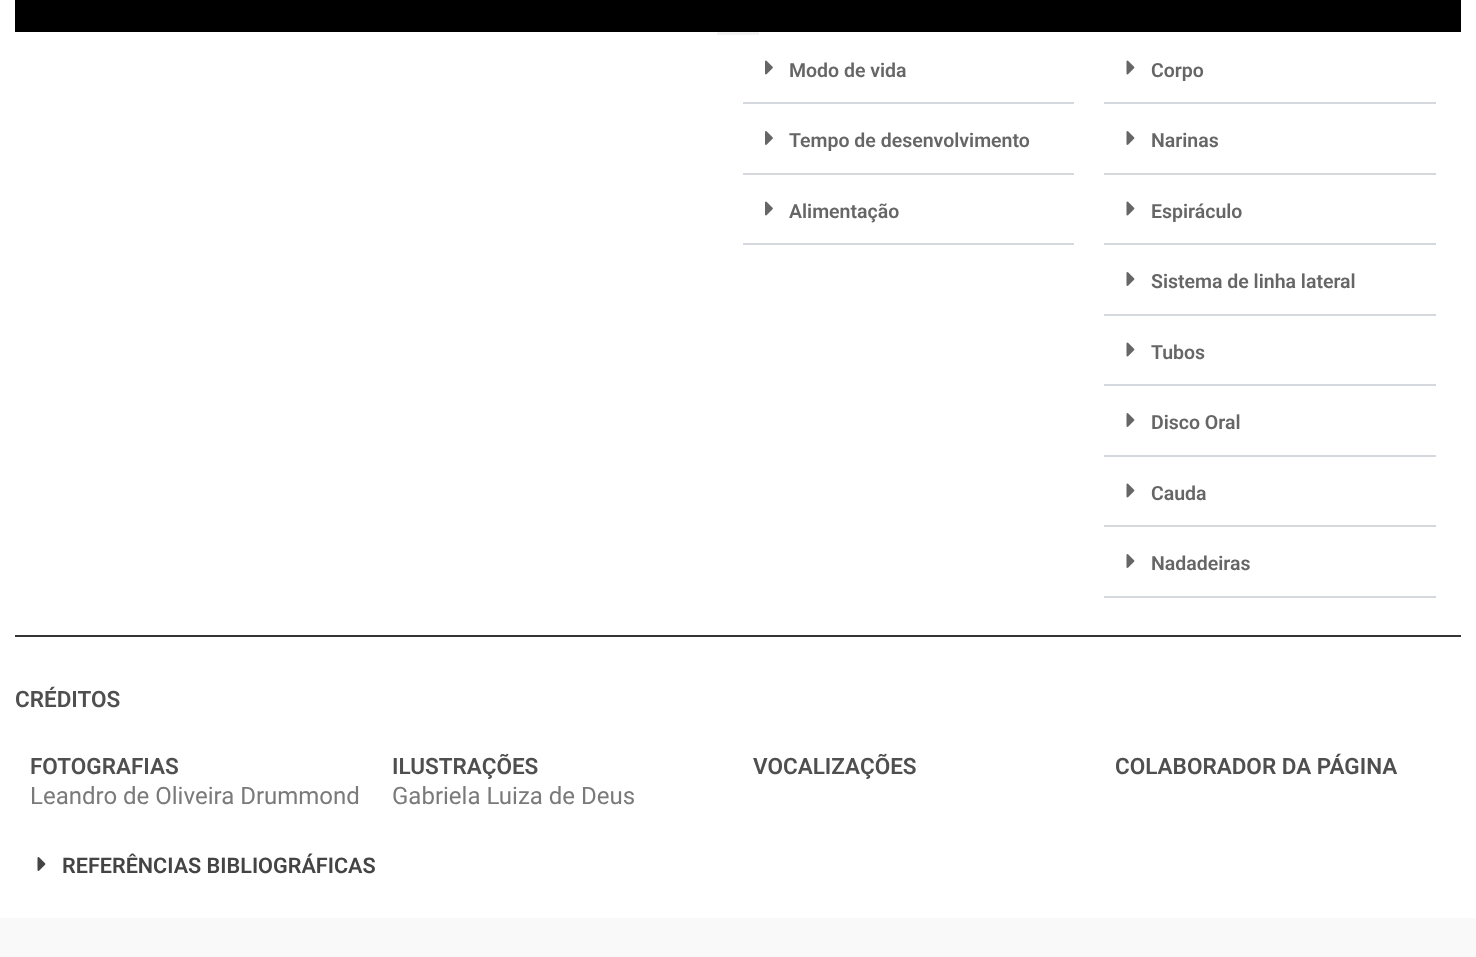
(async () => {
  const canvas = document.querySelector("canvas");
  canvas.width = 1476;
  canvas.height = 957;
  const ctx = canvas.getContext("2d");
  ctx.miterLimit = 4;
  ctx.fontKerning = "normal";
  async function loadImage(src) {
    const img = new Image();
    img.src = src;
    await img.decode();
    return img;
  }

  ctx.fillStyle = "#f9f9f9";
  ctx.fillRect(0, 0, 1476, 957);
  for (const [x, y, w, h, color] of [
    [0, 0, 1476, 918, "#ffffff"],
    [15, 0, 1446, 32, "#000000"],
    [717, 32, 42, 3, "rgba(0, 0, 0, 0.05)"],
    [743, 102, 331, 2, "#d5d8dc"],
  ]) {
    ctx.fillStyle = color;
    ctx.fillRect(x, y, w, h);
  }
  ctx.drawImage(await loadImage("img/1.png"), 765, 60, 8, 15);
  ctx.fillRect(743, 173, 331, 2);
  ctx.drawImage(await loadImage("img/2.png"), 765, 131, 8, 14);
  ctx.fillRect(743, 243, 331, 2);
  ctx.drawImage(await loadImage("img/1.png"), 765, 201, 8, 15);
  ctx.fillRect(1104, 102, 332, 2);
  ctx.drawImage(await loadImage("img/3.png"), 1126, 60, 9, 15);
  ctx.fillRect(1104, 173, 332, 2);
  ctx.drawImage(await loadImage("img/4.png"), 1126, 131, 9, 14);
  ctx.fillRect(1104, 243, 332, 2);
  ctx.drawImage(await loadImage("img/3.png"), 1126, 201, 9, 15);
  ctx.fillRect(1104, 314, 332, 2);
  ctx.drawImage(await loadImage("img/4.png"), 1126, 272, 9, 14);
  ctx.fillRect(1104, 384, 332, 2);
  ctx.drawImage(await loadImage("img/3.png"), 1126, 342, 9, 15);
  ctx.fillRect(1104, 455, 332, 2);
  ctx.drawImage(await loadImage("img/4.png"), 1126, 413, 9, 14);
  ctx.fillRect(1104, 525, 332, 2);
  ctx.drawImage(await loadImage("img/3.png"), 1126, 483, 9, 15);
  ctx.fillRect(1104, 596, 332, 2);
  ctx.drawImage(await loadImage("img/4.png"), 1126, 554, 9, 14);
  ctx.fillStyle = "#353535";
  ctx.fillRect(15, 635, 1446, 2);
  ctx.drawImage(await loadImage("img/5.png"), 37, 857, 9, 14);
  ctx.font = "600 19.5px Roboto";
  ctx.fillStyle = "#666666";
  for (const [text, x, y] of [
    ["Modo de vida", 789, 77],
    ["Tempo de desenvolvimento", 789, 147],
    ["Alimentação", 789, 218],
    ["Corpo", 1151, 77],
    ["Narinas", 1151, 147],
    ["Espiráculo", 1151, 218],
    ["Sistema de linha lateral", 1151, 288],
    ["Tubos", 1151, 359],
    ["Disco Oral", 1151, 429],
    ["Cauda", 1151, 500],
    ["Nadadeiras", 1151, 570],
  ]) {
    ctx.fillText(text, x, y);
  }
  ctx.font = "600 22.5px Roboto";
  ctx.fillStyle = "#4f4f4f";
  ctx.fillText("CRÉDITOS", 15, 707);
  ctx.fillText("FOTOGRAFIAS", 30, 774);
  ctx.font = "24px Roboto";
  ctx.fillStyle = "#7a7a7a";
  ctx.fillText("Leandro de Oliveira Drummond", 30, 804);
  ctx.font = "600 22.5px Roboto";
  ctx.fillStyle = "#4f4f4f";
  ctx.fillText("ILUSTRAÇÕES", 392, 774);
  ctx.font = "24px Roboto";
  ctx.fillStyle = "#7a7a7a";
  ctx.fillText("Gabriela Luiza de Deus", 392, 804);
  ctx.font = "600 22.5px Roboto";
  ctx.fillStyle = "#4f4f4f";
  ctx.fillText("VOCALIZAÇÕES", 753, 774);
  ctx.fillText("COLABORADOR DA PÁGINA", 1115, 774);
  ctx.font = "600 21.6px Roboto";
  ctx.fillStyle = "#444444";
  ctx.fillText("REFERÊNCIAS BIBLIOGRÁFICAS", 62, 873);
})();
